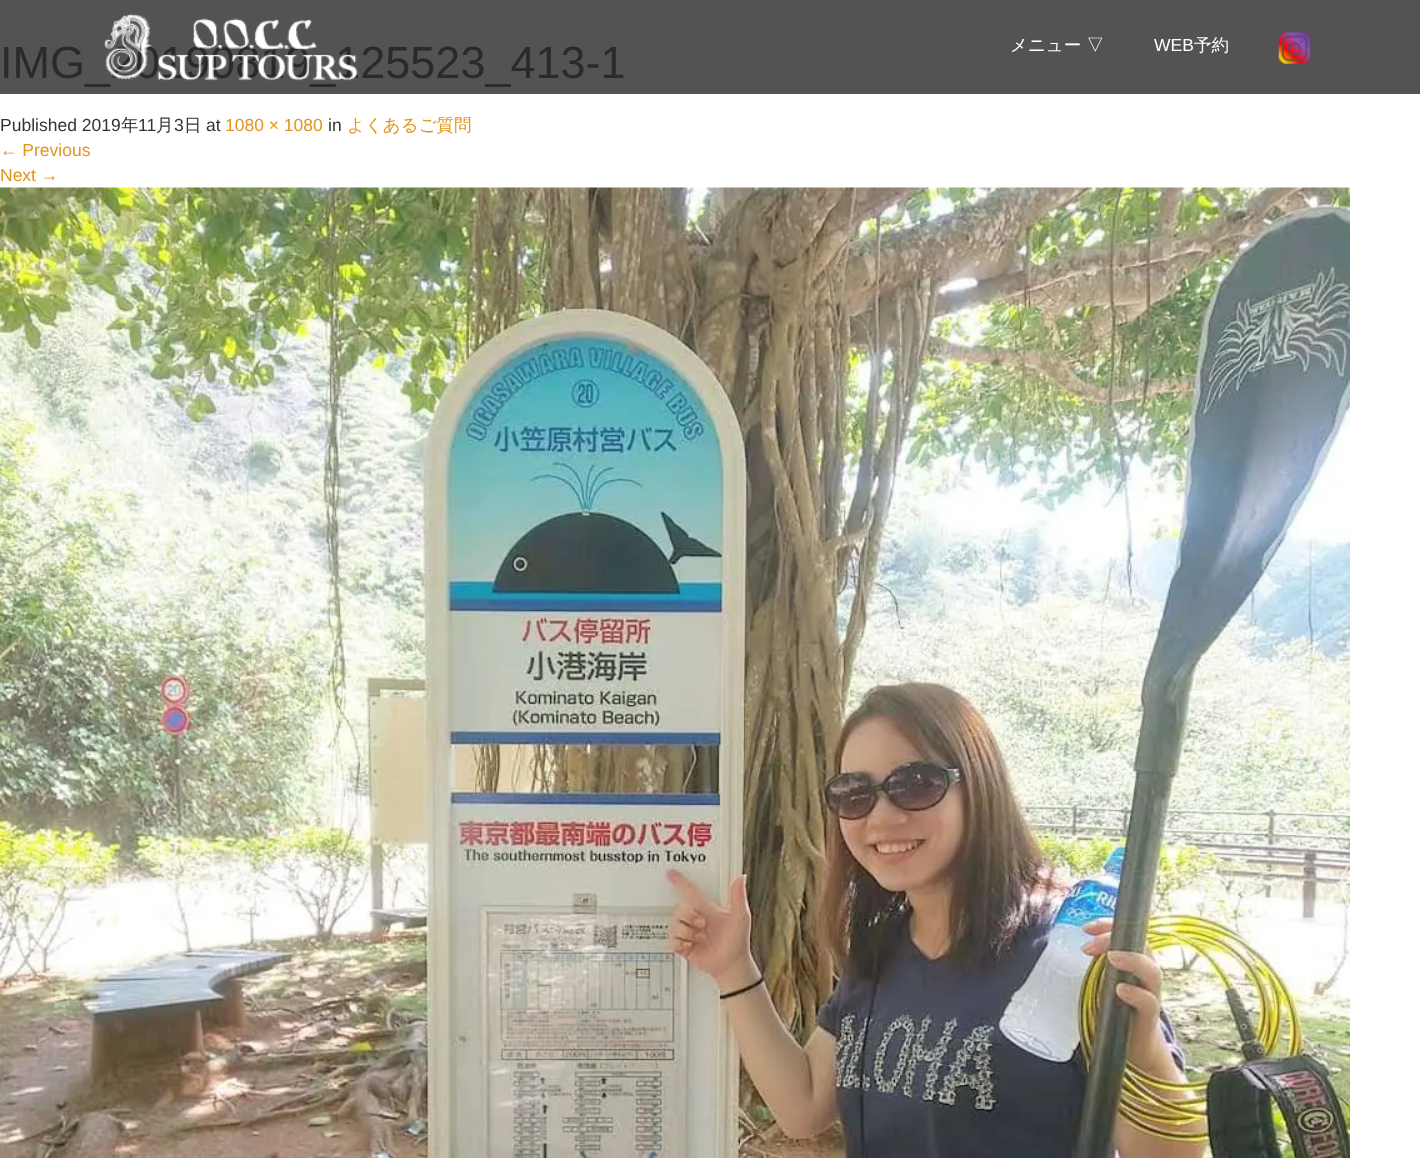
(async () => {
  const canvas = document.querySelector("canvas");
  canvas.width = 1420;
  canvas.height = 1158;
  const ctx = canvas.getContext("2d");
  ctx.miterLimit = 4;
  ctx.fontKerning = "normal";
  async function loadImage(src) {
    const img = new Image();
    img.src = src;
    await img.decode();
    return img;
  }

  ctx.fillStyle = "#ffffff";
  ctx.fillRect(0, 0, 1420, 1158);
  ctx.fillStyle = "#535353";
  ctx.fillRect(0, 0, 1420, 94);
  ctx.drawImage(await loadImage("img/1.png"), 0, 187, 1350, 971);
  ctx.drawImage(await loadImage("img/3.png"), 1278, 32, 32, 32);
  ctx.font = "45px Liberation Sans";
  ctx.fillStyle = "#2a2a2a";
  ctx.fillText("IMG_20190819_125523_413-1", 0, 78);
  ctx.font = "17.5px Liberation Sans";
  ctx.fillStyle = "#333333";
  ctx.fillText("Published 2019", 0, 131);
  ctx.font = "500 17.5px WenQuanYi Zen Hei";
  ctx.fillText("年", 121, 131);
  ctx.font = "17.5px Liberation Sans";
  ctx.fillText("11", 138, 131);
  ctx.font = "500 17.5px WenQuanYi Zen Hei";
  ctx.fillText("月", 156, 131);
  ctx.font = "17.5px Liberation Sans";
  ctx.fillText("3", 174, 131);
  ctx.font = "500 17.5px WenQuanYi Zen Hei";
  ctx.fillText("日", 184, 131);
  ctx.font = "17.5px Liberation Sans";
  ctx.fillText("at", 206, 131);
  ctx.fillStyle = "#e3941b";
  ctx.fillText("1080 × 1080", 225, 131);
  ctx.fillStyle = "#333333";
  ctx.fillText("in", 328, 131);
  ctx.font = "500 17.5px WenQuanYi Zen Hei";
  ctx.fillStyle = "#e3941b";
  ctx.fillText("よくあるご質問", 347, 131);
  ctx.font = "17.5px Liberation Sans";
  ctx.fillText("← Previous", 0, 156);
  ctx.fillText("Next →", 0, 181);
  ctx.drawImage(await loadImage("img/2.png"), 103, 13, 255, 68);
  ctx.font = "500 17.5px WenQuanYi Zen Hei";
  ctx.fillStyle = "#ffffff";
  ctx.fillText("メニュー ▽", 1010, 51);
  ctx.font = "17.5px Liberation Sans";
  ctx.fillText("WEB", 1154, 51);
  ctx.font = "500 17.5px WenQuanYi Zen Hei";
  ctx.fillText("予約", 1194, 51);
})();
